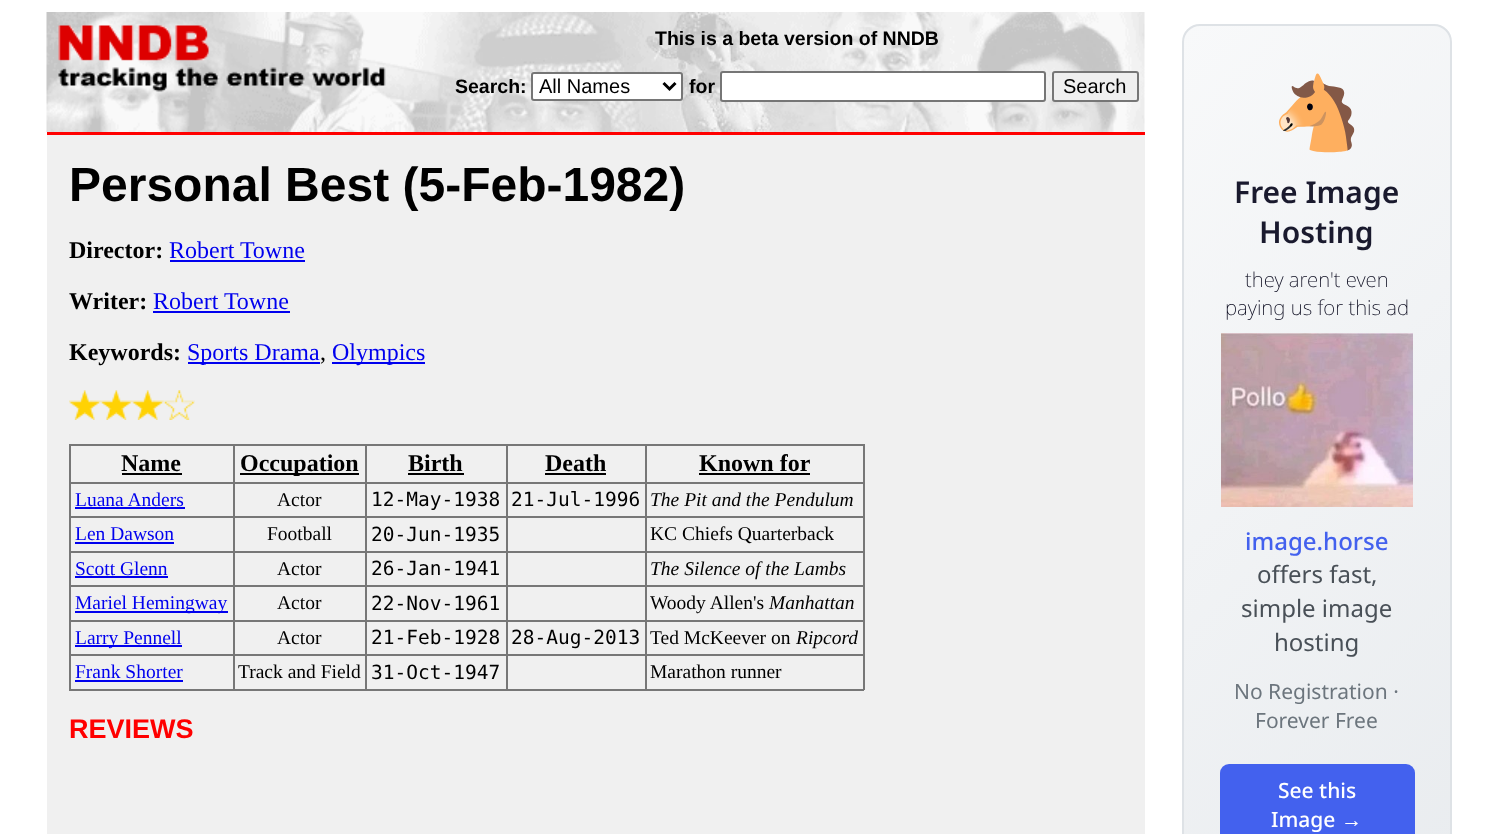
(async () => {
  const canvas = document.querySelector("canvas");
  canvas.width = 1498;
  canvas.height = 834;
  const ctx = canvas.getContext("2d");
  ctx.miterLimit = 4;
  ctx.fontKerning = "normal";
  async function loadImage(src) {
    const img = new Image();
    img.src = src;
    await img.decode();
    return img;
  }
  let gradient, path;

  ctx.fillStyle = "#ffffff";
  ctx.fillRect(0, 0, 1498, 834);
  ctx.drawImage(await loadImage("img/1.png"), 46, 12, 1099, 120);
  ctx.drawImage(await loadImage("img/2.png"), 58, 25, 328, 67);
  ctx.beginPath();
  ctx.roundRect(532, 73, 150, 27, 2);
  ctx.fill();
  ctx.strokeStyle = "#767676";
  ctx.lineWidth = 2;
  ctx.stroke();
  path = new Path2D("M663.5 83L669.5 89L675.5 83");
  ctx.strokeStyle = "#000000";
  ctx.lineWidth = 3;
  ctx.stroke(path);
  ctx.beginPath();
  ctx.roundRect(721, 72, 324, 29, 2);
  ctx.fill();
  ctx.strokeStyle = "#767676";
  ctx.lineWidth = 2;
  ctx.stroke();
  ctx.fillStyle = "#efefef";
  ctx.beginPath();
  ctx.roundRect(1053, 72, 85, 29, 2);
  ctx.fill();
  ctx.stroke();
  for (const [x, y, w, h, color] of [
    [47, 132, 1098, 3, "#ff0000"],
    [47, 135, 1098, 699, "#f0f0f0"],
    [170, 260, 135, 2, "#0000ee"],
    [153, 311, 137, 2, "#0000ee"],
    [188, 362, 132, 2, "#0000ee"],
    [332, 362, 93, 2, "#0000ee"],
  ]) {
    ctx.fillStyle = color;
    ctx.fillRect(x, y, w, h);
  }
  ctx.drawImage(await loadImage("img/3.png"), 69, 390, 32, 30);
  ctx.drawImage(await loadImage("img/4.png"), 100, 390, 32, 30);
  ctx.drawImage(await loadImage("img/3.png"), 132, 390, 32, 30);
  ctx.drawImage(await loadImage("img/5.png"), 163, 390, 32, 30);
  for (const [x, y, w, h, color] of [
    [69, 444, 795, 2, "#777777"],
    [863, 444, 2, 246, "#777777"],
    [69, 689, 795, 2, "#777777"],
    [69, 444, 2, 246, "#777777"],
    [122, 473, 60, 2, "#000000"],
    [645, 482, 219, 2, "#777777"],
    [645, 516, 219, 2, "#777777"],
    [645, 551, 219, 2, "#777777"],
    [645, 585, 219, 2, "#777777"],
    [645, 620, 219, 2, "#777777"],
    [645, 654, 219, 2, "#777777"],
    [645, 654, 2, 36, "#777777"],
    [506, 654, 141, 2, "#777777"],
    [645, 620, 2, 36, "#777777"],
    [506, 620, 141, 2, "#777777"],
    [645, 585, 2, 36, "#777777"],
    [506, 585, 141, 2, "#777777"],
    [645, 551, 2, 36, "#777777"],
    [506, 551, 141, 2, "#777777"],
    [645, 516, 2, 36, "#777777"],
    [506, 516, 141, 2, "#777777"],
    [645, 482, 2, 36, "#777777"],
    [506, 482, 141, 2, "#777777"],
    [506, 654, 2, 36, "#777777"],
    [365, 654, 142, 2, "#777777"],
    [506, 620, 2, 36, "#777777"],
    [365, 620, 142, 2, "#777777"],
    [506, 585, 2, 36, "#777777"],
    [365, 585, 142, 2, "#777777"],
    [506, 551, 2, 36, "#777777"],
    [365, 551, 142, 2, "#777777"],
    [506, 516, 2, 36, "#777777"],
    [365, 516, 142, 2, "#777777"],
    [506, 482, 2, 36, "#777777"],
    [365, 482, 142, 2, "#777777"],
    [365, 654, 2, 36, "#777777"],
    [233, 654, 133, 2, "#777777"],
    [365, 620, 2, 36, "#777777"],
    [233, 620, 133, 2, "#777777"],
    [365, 585, 2, 36, "#777777"],
    [233, 585, 133, 2, "#777777"],
    [365, 551, 2, 36, "#777777"],
    [233, 551, 133, 2, "#777777"],
    [365, 516, 2, 36, "#777777"],
    [233, 516, 133, 2, "#777777"],
    [365, 482, 2, 36, "#777777"],
    [233, 482, 133, 2, "#777777"],
    [233, 654, 2, 36, "#777777"],
    [69, 654, 165, 2, "#777777"],
    [233, 620, 2, 36, "#777777"],
    [69, 620, 165, 2, "#777777"],
    [233, 585, 2, 36, "#777777"],
    [69, 585, 165, 2, "#777777"],
    [233, 551, 2, 36, "#777777"],
    [69, 551, 165, 2, "#777777"],
    [233, 516, 2, 36, "#777777"],
    [69, 516, 165, 2, "#777777"],
    [233, 482, 2, 36, "#777777"],
    [69, 482, 165, 2, "#777777"],
    [233, 444, 2, 39, "#777777"],
    [240, 473, 119, 2, "#000000"],
    [365, 444, 2, 39, "#777777"],
    [408, 473, 56, 2, "#000000"],
    [506, 444, 2, 39, "#777777"],
    [545, 473, 61, 2, "#000000"],
    [645, 444, 2, 39, "#777777"],
    [699, 473, 111, 2, "#000000"],
    [75, 507, 110, 2, "#0000ee"],
    [75, 542, 99, 2, "#0000ee"],
    [75, 576, 93, 2, "#0000ee"],
    [75, 611, 153, 2, "#0000ee"],
    [75, 645, 107, 2, "#0000ee"],
    [75, 680, 108, 2, "#0000ee"],
  ]) {
    ctx.fillStyle = color;
    ctx.fillRect(x, y, w, h);
  }
  ctx.save();
  ctx.beginPath();
  ctx.roundRect(1182, 24, 270, 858, 18);
  ctx.clip();
  gradient = ctx.createLinearGradient(1037, 173, 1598, 734);
  gradient.addColorStop(0, "#f8f9fa");
  gradient.addColorStop(1, "#e9ecef");
  ctx.fillStyle = gradient;
  ctx.fillRect(1184, 26, 267, 808);
  ctx.restore();
  ctx.beginPath();
  ctx.roundRect(1183, 25, 268, 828, 17);
  ctx.strokeStyle = "#dee2e6";
  ctx.stroke();
  ctx.drawImage(await loadImage("img/6.png"), 1221, 333, 192, 174);
  ctx.fillStyle = "#4361ee";
  ctx.beginPath();
  ctx.roundRect(1220, 764, 195, 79, 9);
  ctx.fill();
  ctx.font = "bold 19.5px Liberation Sans";
  ctx.fillStyle = "#000000";
  ctx.fillText("This is a beta version of NNDB", 655, 45);
  ctx.fillText("Search:", 455, 93);
  ctx.font = "20px Liberation Sans";
  ctx.fillText("All Names", 539, 93);
  ctx.font = "bold 19.5px Liberation Sans";
  ctx.fillText("for", 689, 93);
  ctx.font = "20px Liberation Sans";
  ctx.fillText("Search", 1063, 93);
  ctx.font = "bold 48px Liberation Sans";
  ctx.fillText("Personal Best (5-Feb-1982)", 69, 201);
  ctx.font = "bold 24px Liberation Serif";
  ctx.fillText("Director:", 69, 258);
  ctx.font = "24px Liberation Serif";
  ctx.fillStyle = "#0000ee";
  ctx.fillText("Robert Towne", 169, 258);
  ctx.font = "bold 24px Liberation Serif";
  ctx.fillStyle = "#000000";
  ctx.fillText("Writer:", 69, 309);
  ctx.font = "24px Liberation Serif";
  ctx.fillStyle = "#0000ee";
  ctx.fillText("Robert Towne", 153, 309);
  ctx.font = "bold 24px Liberation Serif";
  ctx.fillStyle = "#000000";
  ctx.fillText("Keywords:", 69, 360);
  ctx.font = "24px Liberation Serif";
  ctx.fillStyle = "#0000ee";
  ctx.fillText("Sports Drama", 187, 360);
  ctx.fillStyle = "#000000";
  ctx.fillText(",", 320, 360);
  ctx.fillStyle = "#0000ee";
  ctx.fillText("Olympics", 332, 360);
  ctx.font = "bold 24px Liberation Serif";
  ctx.fillStyle = "#000000";
  for (const [text, x, y] of [
    ["Name", 121, 471],
    ["Occupation", 240, 471],
    ["Birth", 408, 471],
    ["Death", 545, 471],
    ["Known for", 699, 471],
  ]) {
    ctx.fillText(text, x, y);
  }
  ctx.font = "19.5px Liberation Serif";
  ctx.fillStyle = "#0000ee";
  ctx.fillText("Luana Anders", 75, 506);
  ctx.fillStyle = "#000000";
  ctx.fillText("Actor", 277, 506);
  ctx.font = "19.5px DejaVu Sans Mono";
  ctx.fillText("12-May-1938", 371, 506);
  ctx.fillText("21-Jul-1996", 511, 506);
  ctx.font = "italic 19.5px Liberation Serif";
  ctx.fillText("The Pit and the Pendulum", 650, 506);
  ctx.font = "19.5px Liberation Serif";
  ctx.fillStyle = "#0000ee";
  ctx.fillText("Len Dawson", 75, 540);
  ctx.fillStyle = "#000000";
  ctx.fillText("Football", 267, 540);
  ctx.font = "19.5px DejaVu Sans Mono";
  ctx.fillText("20-Jun-1935", 371, 541);
  ctx.font = "19.5px Liberation Serif";
  ctx.fillText("KC Chiefs Quarterback", 650, 540);
  ctx.fillStyle = "#0000ee";
  ctx.fillText("Scott Glenn", 75, 575);
  ctx.fillStyle = "#000000";
  ctx.fillText("Actor", 277, 575);
  ctx.font = "19.5px DejaVu Sans Mono";
  ctx.fillText("26-Jan-1941", 371, 575);
  ctx.font = "italic 19.5px Liberation Serif";
  ctx.fillText("The Silence of the Lambs", 650, 575);
  ctx.font = "19.5px Liberation Serif";
  ctx.fillStyle = "#0000ee";
  ctx.fillText("Mariel Hemingway", 75, 609);
  ctx.fillStyle = "#000000";
  ctx.fillText("Actor", 277, 609);
  ctx.font = "19.5px DejaVu Sans Mono";
  ctx.fillText("22-Nov-1961", 371, 610);
  ctx.font = "19.5px Liberation Serif";
  ctx.fillText("Woody Allen's", 650, 609);
  ctx.font = "italic 19.5px Liberation Serif";
  ctx.fillText("Manhattan", 769, 609);
  ctx.font = "19.5px Liberation Serif";
  ctx.fillStyle = "#0000ee";
  ctx.fillText("Larry Pennell", 75, 644);
  ctx.fillStyle = "#000000";
  ctx.fillText("Actor", 277, 644);
  ctx.font = "19.5px DejaVu Sans Mono";
  ctx.fillText("21-Feb-1928", 371, 644);
  ctx.fillText("28-Aug-2013", 511, 644);
  ctx.font = "19.5px Liberation Serif";
  ctx.fillText("Ted McKeever on", 650, 644);
  ctx.font = "italic 19.5px Liberation Serif";
  ctx.fillText("Ripcord", 796, 644);
  ctx.font = "19.5px Liberation Serif";
  ctx.fillStyle = "#0000ee";
  ctx.fillText("Frank Shorter", 75, 678);
  ctx.fillStyle = "#000000";
  ctx.fillText("Track and Field", 238, 678);
  ctx.font = "19.5px DejaVu Sans Mono";
  ctx.fillText("31-Oct-1947", 371, 679);
  ctx.font = "19.5px Liberation Serif";
  ctx.fillText("Marathon runner", 650, 678);
  ctx.font = "bold 27px Liberation Sans";
  ctx.fillStyle = "#ff0000";
  ctx.fillText("REVIEWS", 69, 738);
  ctx.font = "72px Noto Color Emoji";
  ctx.fillStyle = "#0000ee";
  ctx.fillText("🐴", 1272, 138);
  ctx.font = "600 30px Noto Sans";
  ctx.fillStyle = "#1a1a2e";
  ctx.fillText("Free Image", 1234, 203);
  ctx.fillText("Hosting", 1259, 243);
  ctx.font = "200 20.5px Noto Sans";
  ctx.fillStyle = "#0a0a1e";
  ctx.fillText("they aren't even", 1245, 287);
  ctx.fillText("paying us for this ad", 1225, 315);
  ctx.font = "500 24px Noto Sans";
  ctx.fillStyle = "#4361ee";
  ctx.fillText("image.horse", 1245, 550);
  ctx.font = "24px Noto Sans";
  ctx.fillStyle = "#495057";
  for (const [text, x, y] of [
    ["offers fast,", 1257, 583],
    ["simple image", 1241, 617],
    ["hosting", 1274, 651],
  ]) {
    ctx.fillText(text, x, y);
  }
  ctx.font = "21px Noto Sans";
  ctx.fillStyle = "#6c757d";
  ctx.fillText("No Registration ·", 1234, 699);
  ctx.fillText("Forever Free", 1255, 728);
  ctx.font = "500 21px Noto Sans";
  ctx.fillStyle = "#ffffff";
  ctx.fillText("See this", 1278, 798);
  ctx.fillText("Image", 1271, 827);
  ctx.font = "21px Liberation Sans";
  ctx.fillText("→", 1341, 827);
})();
